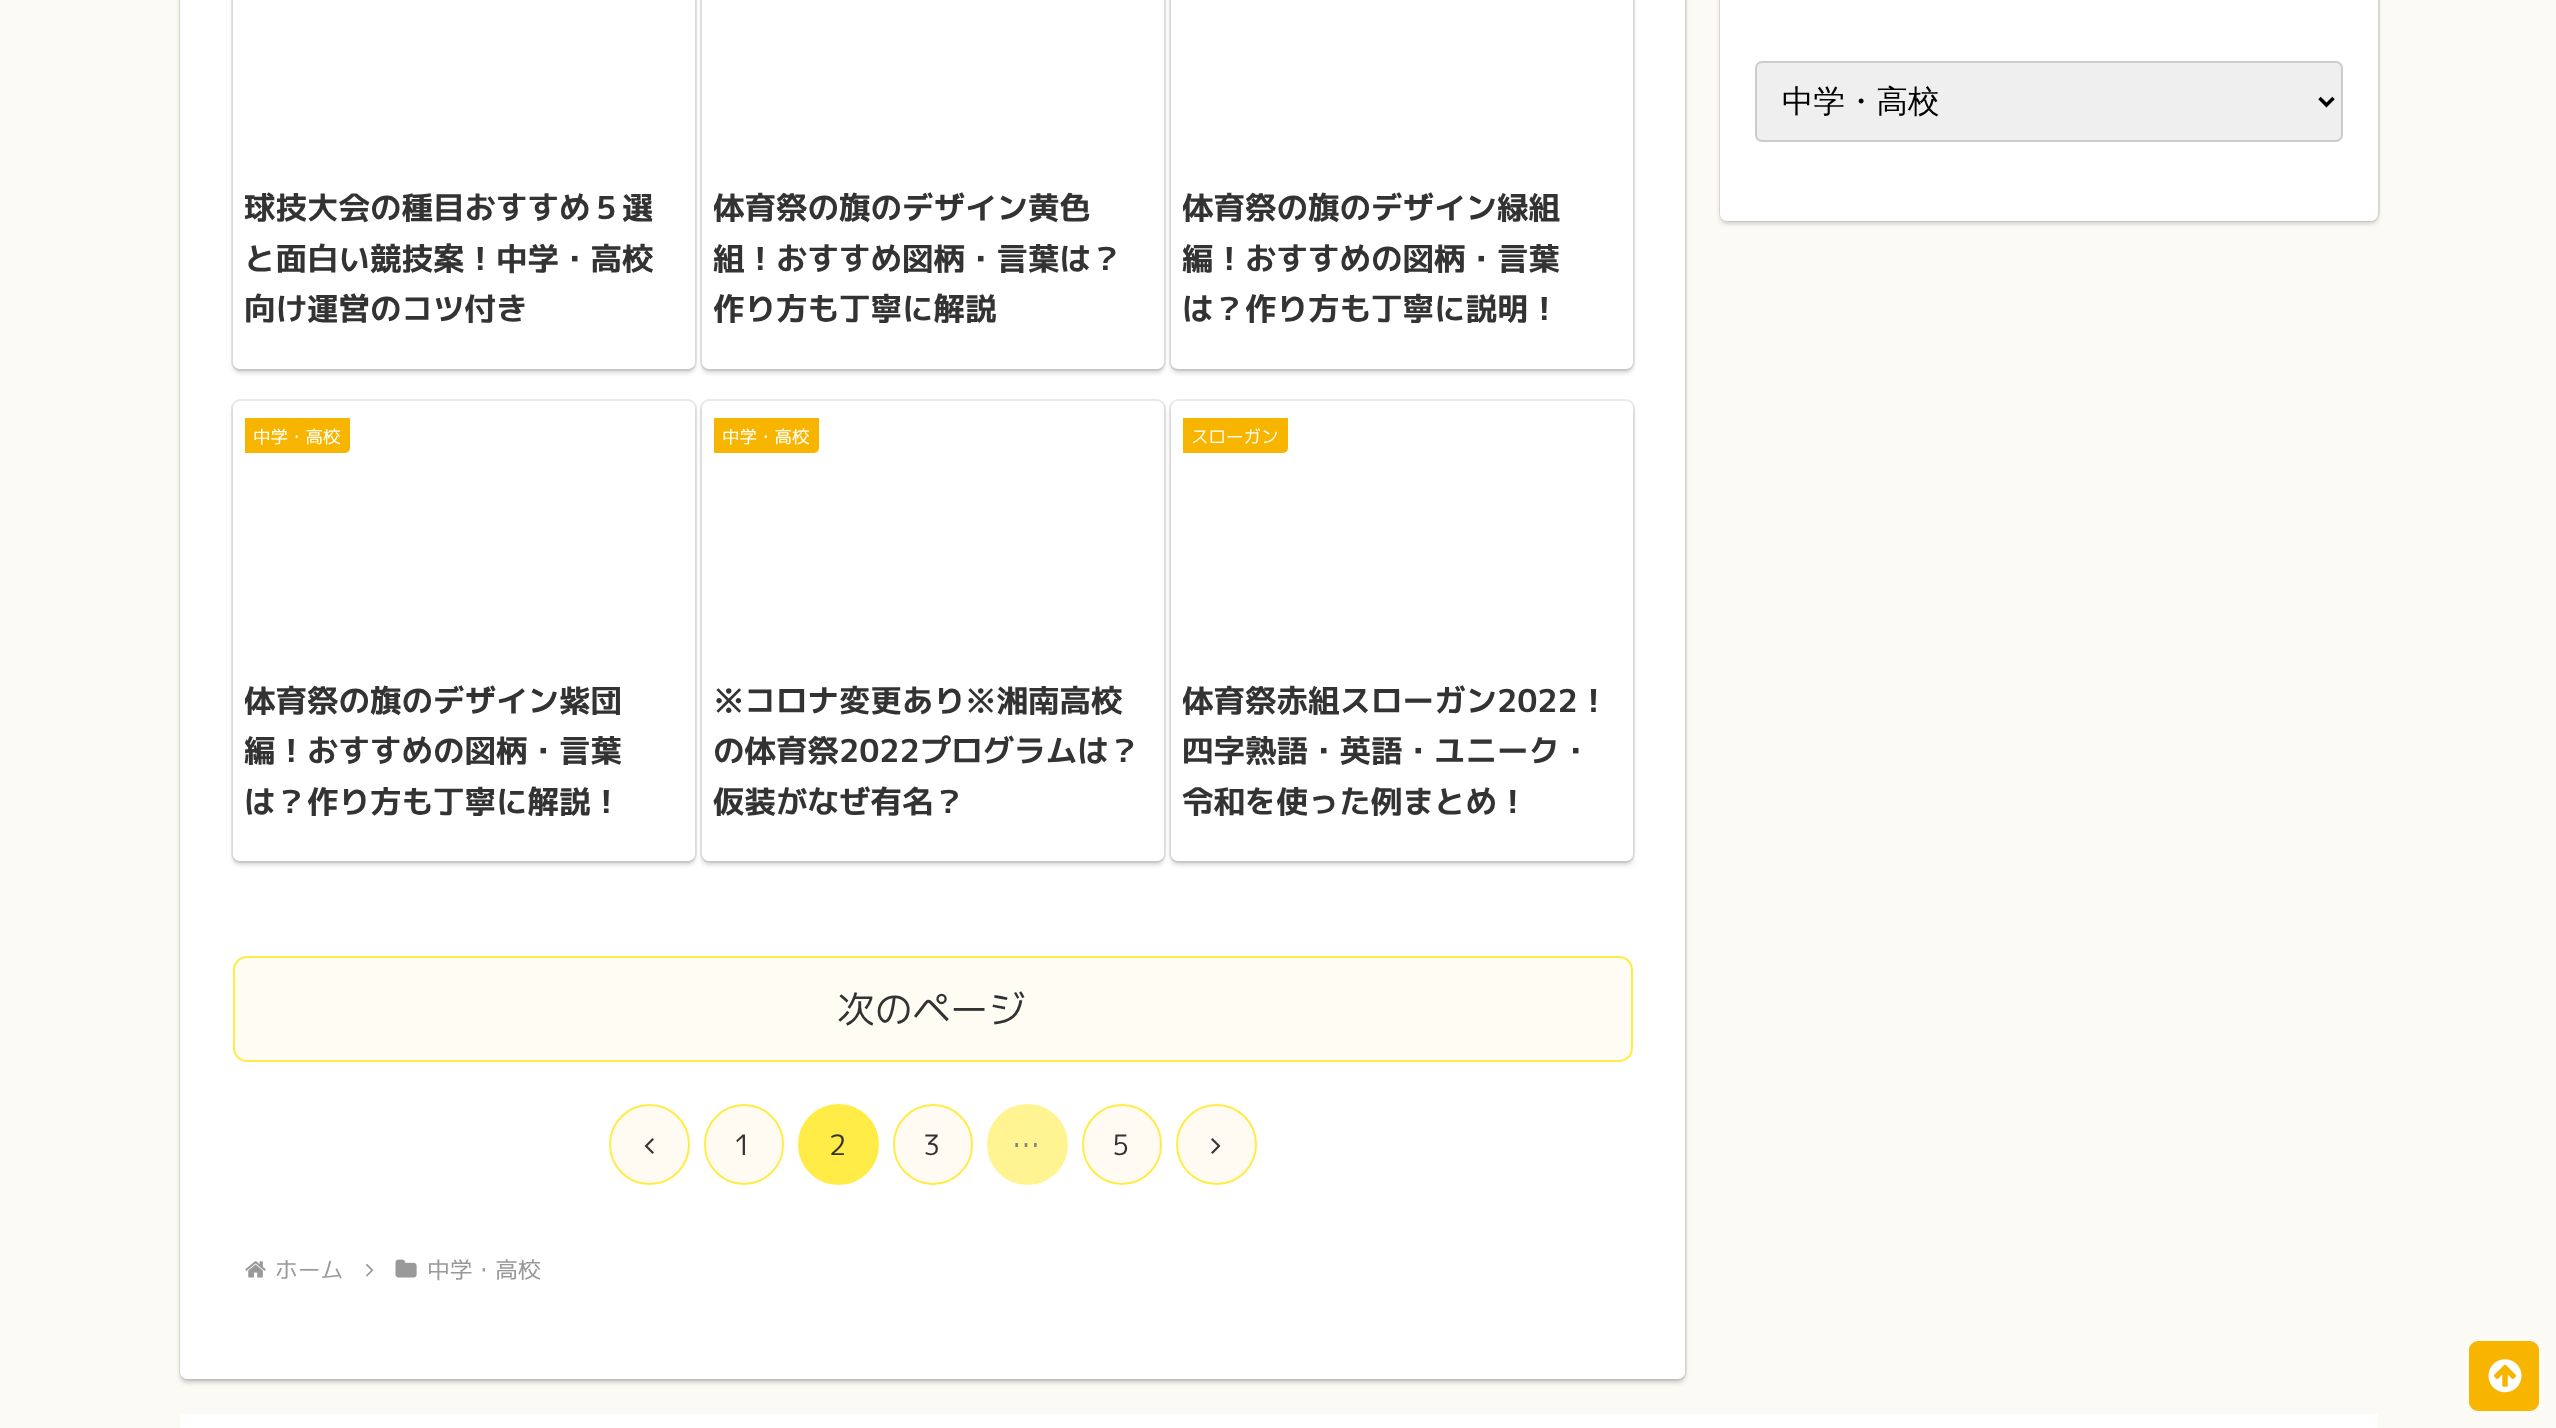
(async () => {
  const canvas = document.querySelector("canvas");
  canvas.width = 2556;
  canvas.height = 1428;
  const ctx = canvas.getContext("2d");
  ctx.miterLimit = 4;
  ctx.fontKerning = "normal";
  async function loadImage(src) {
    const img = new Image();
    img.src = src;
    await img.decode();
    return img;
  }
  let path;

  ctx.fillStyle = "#fbfaf5";
  ctx.fillRect(0, 0, 2556, 1428);
  ctx.beginPath();
  ctx.roundRect(1720, -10, 659, 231, 8);
  ctx.strokeStyle = "#e7e6e1";
  ctx.lineWidth = 2;
  ctx.stroke();
  ctx.fillStyle = "rgba(0, 0, 0, 0.16)";
  ctx.filter = "blur(2px)";
  ctx.beginPath();
  ctx.roundRect(1720, -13, 658, 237, 7);
  ctx.fill();
  ctx.filter = "none";
  ctx.fillStyle = "#ffffff";
  ctx.beginPath();
  ctx.roundRect(1720, -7, 658, 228, 7);
  ctx.fill();
  ctx.fillStyle = "#efefef";
  ctx.beginPath();
  ctx.roundRect(1756, 62, 586, 79, 6);
  ctx.fill();
  ctx.strokeStyle = "#cccccc";
  ctx.stroke();
  path = new Path2D("M2319.5 98L2326.5 105L2333.5 98");
  ctx.strokeStyle = "#000000";
  ctx.lineWidth = 3.5;
  ctx.stroke(path);
  ctx.beginPath();
  ctx.roundRect(180, -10, 1506, 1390, 8);
  ctx.strokeStyle = "#e7e6e1";
  ctx.lineWidth = 2;
  ctx.stroke();
  ctx.fillStyle = "rgba(0, 0, 0, 0.16)";
  ctx.filter = "blur(2px)";
  ctx.beginPath();
  ctx.roundRect(180, -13, 1505, 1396, 7);
  ctx.fill();
  ctx.filter = "none";
  ctx.fillStyle = "#ffffff";
  ctx.beginPath();
  ctx.roundRect(180, -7, 1505, 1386, 7);
  ctx.fill();
  ctx.beginPath();
  ctx.roundRect(232, -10, 464, 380, 8);
  ctx.strokeStyle = "#ebebeb";
  ctx.stroke();
  ctx.save();
  path = new Path2D("M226 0H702V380H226ZM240-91H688C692-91 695-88 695-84V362C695 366 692 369 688 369H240C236 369 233 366 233 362V-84C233-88 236-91 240-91Z");
  ctx.clip(path, "evenodd");
  ctx.fillStyle = "rgba(0, 0, 0, 0.16)";
  ctx.filter = "blur(2px)";
  ctx.beginPath();
  ctx.roundRect(233, -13, 462, 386, 7);
  ctx.fill();
  ctx.filter = "none";
  ctx.restore();
  ctx.beginPath();
  ctx.roundRect(701, -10, 464, 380, 8);
  ctx.stroke();
  ctx.save();
  path = new Path2D("M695 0H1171V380H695ZM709-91H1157C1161-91 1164-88 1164-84V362C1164 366 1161 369 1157 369H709C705 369 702 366 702 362V-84C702-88 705-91 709-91Z");
  ctx.clip(path, "evenodd");
  ctx.fillStyle = "rgba(0, 0, 0, 0.16)";
  ctx.filter = "blur(2px)";
  ctx.beginPath();
  ctx.roundRect(702, -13, 462, 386, 7);
  ctx.fill();
  ctx.filter = "none";
  ctx.restore();
  ctx.beginPath();
  ctx.roundRect(1170, -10, 464, 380, 8);
  ctx.stroke();
  ctx.save();
  path = new Path2D("M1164 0H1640V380H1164ZM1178-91H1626C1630-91 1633-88 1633-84V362C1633 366 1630 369 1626 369H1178C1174 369 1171 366 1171 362V-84C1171-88 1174-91 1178-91Z");
  ctx.clip(path, "evenodd");
  ctx.fillStyle = "rgba(0, 0, 0, 0.16)";
  ctx.filter = "blur(2px)";
  ctx.beginPath();
  ctx.roundRect(1171, -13, 462, 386, 7);
  ctx.fill();
  ctx.filter = "none";
  ctx.restore();
  ctx.beginPath();
  ctx.roundRect(232, 400, 464, 462, 8);
  ctx.stroke();
  ctx.save();
  path = new Path2D("M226 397H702V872H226ZM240 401H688C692 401 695 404 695 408V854C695 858 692 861 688 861H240C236 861 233 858 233 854V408C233 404 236 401 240 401Z");
  ctx.clip(path, "evenodd");
  ctx.fillStyle = "rgba(0, 0, 0, 0.16)";
  ctx.filter = "blur(2px)";
  ctx.beginPath();
  ctx.roundRect(233, 404, 462, 461, 7);
  ctx.fill();
  ctx.filter = "none";
  ctx.restore();
  ctx.fillStyle = "#f8b500";
  ctx.beginPath();
  ctx.roundRect(245, 418, 105, 35, [0, 0, 5, 0]);
  ctx.fill();
  ctx.beginPath();
  ctx.roundRect(701, 400, 464, 462, 8);
  ctx.stroke();
  ctx.save();
  path = new Path2D("M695 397H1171V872H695ZM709 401H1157C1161 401 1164 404 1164 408V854C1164 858 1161 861 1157 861H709C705 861 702 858 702 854V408C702 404 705 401 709 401Z");
  ctx.clip(path, "evenodd");
  ctx.fillStyle = "rgba(0, 0, 0, 0.16)";
  ctx.filter = "blur(2px)";
  ctx.beginPath();
  ctx.roundRect(702, 404, 462, 461, 7);
  ctx.fill();
  ctx.filter = "none";
  ctx.restore();
  ctx.beginPath();
  ctx.roundRect(714, 418, 105, 35, [0, 0, 5, 0]);
  ctx.fill();
  ctx.beginPath();
  ctx.roundRect(1170, 400, 464, 462, 8);
  ctx.stroke();
  ctx.save();
  path = new Path2D("M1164 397H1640V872H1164ZM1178 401H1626C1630 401 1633 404 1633 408V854C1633 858 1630 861 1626 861H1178C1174 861 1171 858 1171 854V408C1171 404 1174 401 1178 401Z");
  ctx.clip(path, "evenodd");
  ctx.fillStyle = "rgba(0, 0, 0, 0.16)";
  ctx.filter = "blur(2px)";
  ctx.beginPath();
  ctx.roundRect(1171, 404, 462, 461, 7);
  ctx.fill();
  ctx.filter = "none";
  ctx.restore();
  ctx.beginPath();
  ctx.roundRect(1183, 418, 105, 35, [0, 0, 5, 0]);
  ctx.fill();
  ctx.fillStyle = "#fffcf3";
  ctx.beginPath();
  ctx.roundRect(234, 957, 1398, 104, 13);
  ctx.fill();
  ctx.strokeStyle = "#ffec47";
  ctx.stroke();
  ctx.fillStyle = "#fffbf2";
  ctx.beginPath();
  ctx.arc(649.5, 1144.5, 39.5, 0, Math.PI * 2);
  ctx.fill();
  ctx.stroke();
  ctx.drawImage(await loadImage("img/1.png"), 644, 1138, 10, 16);
  ctx.beginPath();
  ctx.roundRect(705, 1105, 78, 79, 39);
  ctx.fill();
  ctx.stroke();
  ctx.fillStyle = "#ffec47";
  ctx.beginPath();
  ctx.arc(838.5, 1144.5, 39.5, 0, Math.PI * 2);
  ctx.fill();
  ctx.stroke();
  ctx.fillStyle = "#fffbf2";
  ctx.beginPath();
  ctx.roundRect(894, 1105, 78, 79, 39);
  ctx.fill();
  ctx.stroke();
  ctx.fillStyle = "#fff491";
  ctx.beginPath();
  ctx.arc(1027.5, 1144.5, 39.5, 0, Math.PI * 2);
  ctx.fill();
  ctx.strokeStyle = "#fff491";
  ctx.stroke();
  ctx.fillStyle = "#fffbf2";
  ctx.beginPath();
  ctx.roundRect(1083, 1105, 78, 79, 39);
  ctx.fill();
  ctx.strokeStyle = "#ffec47";
  ctx.stroke();
  ctx.beginPath();
  ctx.arc(1216.5, 1144.5, 39.5, 0, Math.PI * 2);
  ctx.fill();
  ctx.stroke();
  ctx.drawImage(await loadImage("img/2.png"), 1211, 1138, 10, 16);
  ctx.drawImage(await loadImage("img/3.png"), 245, 1261, 21, 17);
  ctx.drawImage(await loadImage("img/4.png"), 366, 1264, 8, 13);
  ctx.drawImage(await loadImage("img/5.png"), 395, 1259, 22, 19);
  ctx.fillStyle = "#f8b500";
  ctx.beginPath();
  ctx.roundRect(2469, 1341, 70, 70, 9);
  ctx.fill();
  ctx.drawImage(await loadImage("img/6.png"), 2488, 1359, 34, 34);
  ctx.fillStyle = "#ffffff";
  ctx.fillRect(180, 1414, 2198, 14);
  ctx.font = "500 31.5px WenQuanYi Zen Hei";
  ctx.fillStyle = "#000000";
  ctx.fillText("中学・高校", 1782, 112);
  ctx.font = "bold 31.5px 'M PLUS 1p'";
  ctx.fillStyle = "#333333";
  for (const [text, x, y] of [
    ["球技大会の種目おすすめ５選", 244, 219],
    ["と面白い競技案！中学・高校", 244, 270],
    ["向け運営のコツ付き", 244, 320],
  ]) {
    ctx.fillText(text, x, y);
  }
  ctx.save();
  ctx.beginPath();
  ctx.rect(714, 184, 438, 152);
  ctx.clip();
  ctx.fillText("体育祭の旗のデザイン黄色", 713, 219);
  ctx.restore();
  ctx.fillText("組！おすすめ図柄・言葉は？", 713, 270);
  ctx.fillText("作り方も丁寧に解説", 713, 320);
  ctx.save();
  ctx.beginPath();
  ctx.rect(1183, 184, 438, 152);
  ctx.clip();
  ctx.fillText("体育祭の旗のデザイン緑組", 1182, 219);
  ctx.restore();
  ctx.fillText("編！おすすめの図柄・言葉", 1182, 270);
  ctx.fillText("は？作り方も丁寧に説明！", 1182, 320);
  ctx.font = "17.5px 'M PLUS 1p'";
  ctx.fillStyle = "#ffffff";
  ctx.fillText("中学・高校", 253, 443);
  ctx.save();
  ctx.beginPath();
  ctx.rect(245, 677, 438, 151);
  ctx.clip();
  ctx.font = "bold 31.5px 'M PLUS 1p'";
  ctx.fillStyle = "#333333";
  ctx.fillText("体育祭の旗のデザイン紫団", 244, 712);
  ctx.restore();
  ctx.font = "bold 31.5px 'M PLUS 1p'";
  ctx.fillStyle = "#333333";
  ctx.fillText("編！おすすめの図柄・言葉", 244, 762);
  ctx.fillText("は？作り方も丁寧に解説！", 244, 813);
  ctx.font = "17.5px 'M PLUS 1p'";
  ctx.fillStyle = "#ffffff";
  ctx.fillText("中学・高校", 722, 443);
  ctx.font = "bold 31.5px 'M PLUS 1p'";
  ctx.fillStyle = "#333333";
  for (const [text, x, y] of [
    ["※コロナ変更あり※湘南高校", 713, 712],
    ["の体育祭2022プログラムは？", 713, 762],
    ["仮装がなぜ有名？", 713, 813],
  ]) {
    ctx.fillText(text, x, y);
  }
  ctx.font = "17.5px 'M PLUS 1p'";
  ctx.fillStyle = "#ffffff";
  ctx.fillText("スローガン", 1191, 443);
  ctx.save();
  ctx.beginPath();
  ctx.rect(1183, 677, 438, 151);
  ctx.clip();
  ctx.font = "bold 31.5px 'M PLUS 1p'";
  ctx.fillStyle = "#333333";
  ctx.fillText("体育祭赤組スローガン2022！", 1182, 712);
  ctx.restore();
  ctx.font = "bold 31.5px 'M PLUS 1p'";
  ctx.fillStyle = "#333333";
  ctx.fillText("四字熟語・英語・ユニーク・", 1182, 762);
  ctx.fillText("令和を使った例まとめ！", 1182, 813);
  ctx.font = "37.75px 'M PLUS 1p'";
  ctx.fillText("次のページ", 837, 1023);
  ctx.font = "28px 'M PLUS 1p'";
  for (const [text, x, y] of [
    ["1", 734, 1155],
    ["2", 829, 1155],
    ["3", 923, 1155],
  ]) {
    ctx.fillText(text, x, y);
  }
  ctx.fillStyle = "#858585";
  ctx.fillText("…", 1012, 1155);
  ctx.fillStyle = "#333333";
  ctx.fillText("5", 1112, 1155);
  ctx.font = "22.75px 'M PLUS 1p'";
  ctx.fillStyle = "#999999";
  ctx.fillText("ホーム", 275, 1278);
  ctx.fillText("中学・高校", 427, 1278);
})();
